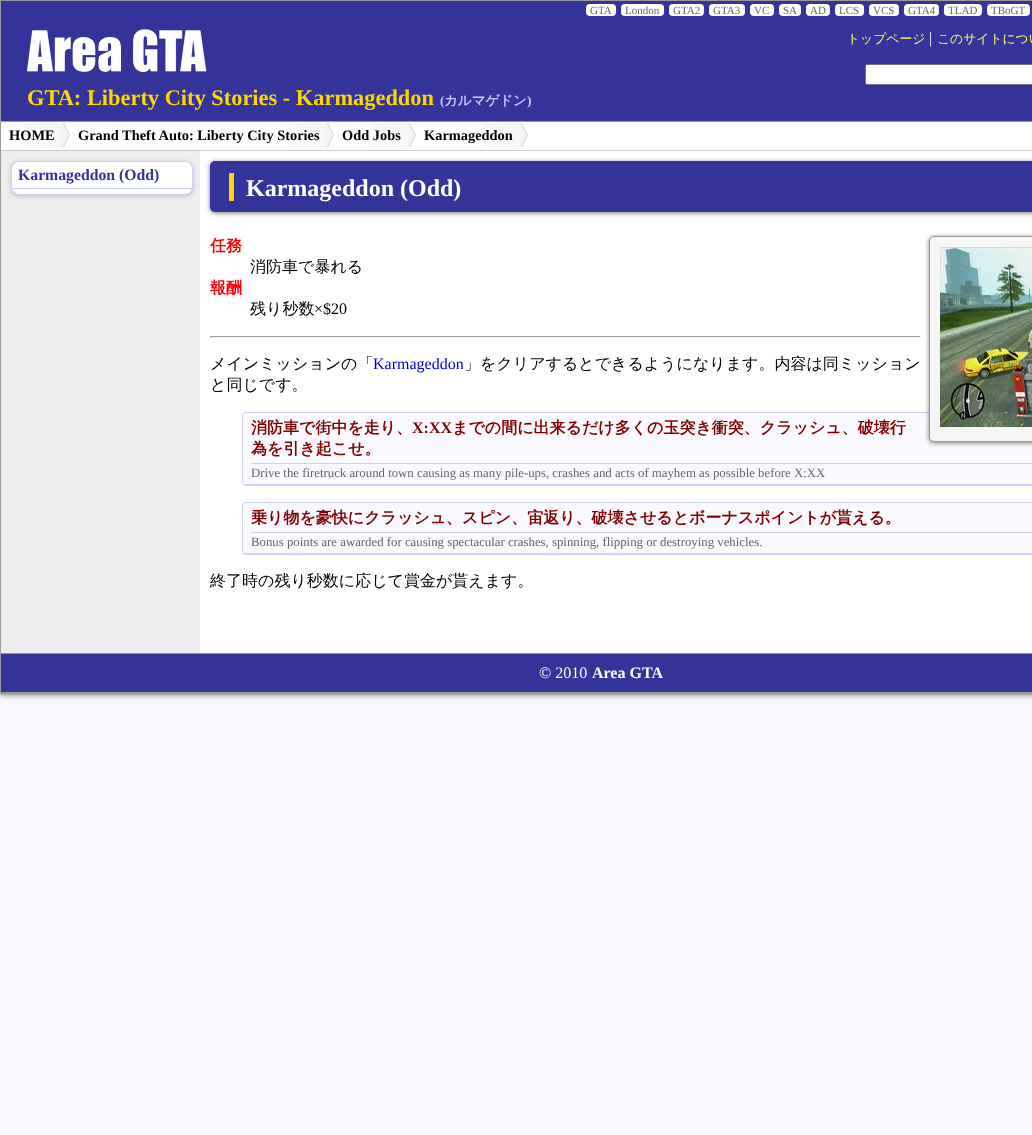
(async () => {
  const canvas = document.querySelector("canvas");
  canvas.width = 1032;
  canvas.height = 1135;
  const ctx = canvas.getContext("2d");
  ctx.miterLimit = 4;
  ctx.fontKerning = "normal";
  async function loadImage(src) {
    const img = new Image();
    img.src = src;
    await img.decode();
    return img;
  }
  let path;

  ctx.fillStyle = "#f7f7ff";
  ctx.fillRect(0, 0, 1032, 1135);
  ctx.fillStyle = "rgba(0, 0, 0, 0.5)";
  ctx.filter = "blur(2.5px)";
  ctx.beginPath();
  ctx.rect(0, 1, 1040, 694);
  ctx.fill();
  ctx.filter = "none";
  ctx.fillStyle = "#eeeeee";
  ctx.fillRect(1, 151, 199, 502);
  ctx.strokeStyle = "#999999";
  ctx.strokeRect(0.5, 0.5, 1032, 693);
  ctx.fillStyle = "#333399";
  ctx.fillRect(1, 1, 1031, 120);
  ctx.fillStyle = "#ffffff";
  ctx.beginPath();
  ctx.roundRect(586, 4, 30, 12, 4);
  ctx.fill();
  ctx.beginPath();
  ctx.roundRect(621, 4, 43, 12, 4);
  ctx.fill();
  ctx.beginPath();
  ctx.roundRect(669, 4, 35, 12, 4);
  ctx.fill();
  ctx.beginPath();
  ctx.roundRect(709, 4, 36, 12, 4);
  ctx.fill();
  ctx.beginPath();
  ctx.roundRect(750, 4, 24, 12, 4);
  ctx.fill();
  ctx.beginPath();
  ctx.roundRect(779, 4, 22, 12, 4);
  ctx.fill();
  ctx.beginPath();
  ctx.roundRect(806, 4, 24, 12, 4);
  ctx.fill();
  ctx.beginPath();
  ctx.roundRect(835, 4, 29, 12, 4);
  ctx.fill();
  ctx.beginPath();
  ctx.roundRect(869, 4, 30, 12, 4);
  ctx.fill();
  ctx.beginPath();
  ctx.roundRect(904, 4, 35, 12, 4);
  ctx.fill();
  ctx.beginPath();
  ctx.roundRect(944, 4, 38, 12, 4);
  ctx.fill();
  ctx.beginPath();
  ctx.roundRect(987, 4, 43, 12, 4);
  ctx.fill();
  ctx.fillStyle = "#999999";
  ctx.fillRect(1, 121, 1031, 1);
  ctx.drawImage(await loadImage("img/1.png"), 27, 29, 180, 44);
  ctx.fillStyle = "#ffffff";
  ctx.beginPath();
  ctx.roundRect(865.5, 64.5, 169, 20, 1.5);
  ctx.fill();
  ctx.strokeStyle = "#767676";
  ctx.stroke();
  ctx.fillRect(1, 122, 1031, 28);
  ctx.fillStyle = "#cccccc";
  ctx.fillRect(1, 150, 1031, 1);
  ctx.drawImage(await loadImage("img/2.png"), 24, 123, 46, 24);
  ctx.drawImage(await loadImage("img/3.png"), 289, 123, 45, 24);
  ctx.drawImage(await loadImage("img/4.png"), 370, 123, 46, 24);
  ctx.drawImage(await loadImage("img/3.png"), 483, 123, 45, 24);
  ctx.fillStyle = "#ffffff";
  ctx.fillRect(200, 151, 832, 502);
  ctx.fillStyle = "rgba(0, 0, 0, 0.2)";
  ctx.filter = "blur(2.5px)";
  ctx.beginPath();
  ctx.roundRect(11, 162, 182, 34, 8);
  ctx.fill();
  ctx.filter = "none";
  ctx.fillStyle = "#ffffff";
  ctx.beginPath();
  ctx.roundRect(11.5, 161.5, 181, 33, 7.5);
  ctx.fill();
  ctx.strokeStyle = "#d0d0ff";
  ctx.stroke();
  ctx.fillStyle = "#d0d0ff";
  ctx.fillRect(12, 188, 180, 1);
  ctx.fillStyle = "rgba(0, 0, 0, 0.5)";
  ctx.filter = "blur(2.5px)";
  ctx.beginPath();
  ctx.roundRect(210, 162, 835, 51, 5);
  ctx.fill();
  ctx.filter = "none";
  ctx.fillStyle = "#333399";
  ctx.beginPath();
  ctx.roundRect(210, 161, 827, 51, 5);
  ctx.fill();
  ctx.fillStyle = "#ffd700";
  ctx.fillRect(229, 173, 5, 28);
  ctx.fillStyle = "#f9f9ff";
  path = new Path2D("M246 413H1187C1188 413 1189 414 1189 416V482C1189 483 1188 484 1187 484H246C244 484 243 483 243 482V416C243 414 244 413 246 413Z");
  ctx.fill(path);
  ctx.beginPath();
  ctx.roundRect(242.5, 412.5, 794, 73, 3.5);
  ctx.stroke();
  ctx.fillStyle = "rgba(0, 0, 0, 0.5)";
  ctx.filter = "blur(2.5px)";
  ctx.beginPath();
  ctx.roundRect(929, 237, 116, 206, 5);
  ctx.fill();
  ctx.filter = "none";
  ctx.fillStyle = "#f6f6f6";
  ctx.beginPath();
  ctx.roundRect(929.5, 236.5, 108, 205, 4.5);
  ctx.fill();
  ctx.strokeStyle = "#999999";
  ctx.stroke();
  ctx.drawImage(await loadImage("img/5.png"), 940, 247, 92, 180);
  for (const [x, y, w, h, color] of [
    [210, 336, 711, 1, "#9f9f9f"],
    [920, 336, 1, 2, "#eeeeee"],
    [210, 337, 711, 1, "#eeeeee"],
    [210, 336, 1, 2, "#9f9f9f"],
    [244, 484, 788, 1, "#d0d0ff"],
    [251, 463, 781, 1, "#d0d0ff"],
  ]) {
    ctx.fillStyle = color;
    ctx.fillRect(x, y, w, h);
  }
  ctx.fillStyle = "#f9f9ff";
  path = new Path2D("M246 503H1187C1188 503 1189 504 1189 506V551C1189 552 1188 553 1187 553H246C244 553 243 552 243 551V506C243 504 244 503 246 503Z");
  ctx.fill(path);
  ctx.beginPath();
  ctx.roundRect(242.5, 502.5, 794, 52, 3.5);
  ctx.strokeStyle = "#d0d0ff";
  ctx.stroke();
  for (const [x, y, w, h, color] of [
    [244, 553, 788, 1, "#d0d0ff"],
    [251, 532, 781, 1, "#d0d0ff"],
    [1, 654, 1031, 38, "#333399"],
    [1, 653, 1031, 1, "#999999"],
    [1, 692, 1031, 1, "#999977"],
  ]) {
    ctx.fillStyle = color;
    ctx.fillRect(x, y, w, h);
  }
  ctx.font = "11px Liberation Serif";
  ctx.fillStyle = "#666666";
  for (const [text, x, y] of [
    ["GTA", 590, 14],
    ["London", 625, 14],
    ["GTA2", 673, 14],
    ["GTA3", 713, 14],
    ["VC", 754, 14],
    ["SA", 783, 14],
    ["AD", 810, 14],
    ["LCS", 839, 14],
    ["VCS", 873, 14],
    ["GTA4", 908, 14],
    ["TLAD", 948, 14],
    ["TBoGT", 991, 14],
  ]) {
    ctx.fillText(text, x, y);
  }
  ctx.font = "500 12.8px WenQuanYi Zen Hei";
  ctx.fillStyle = "#ffff66";
  ctx.fillText("トップページ", 847, 43);
  ctx.font = "16px Liberation Serif";
  ctx.fillStyle = "#ffffff";
  ctx.fillText("|", 929, 43);
  ctx.font = "500 12.8px WenQuanYi Zen Hei";
  ctx.fillStyle = "#ffff66";
  ctx.fillText("このサイトについ", 937, 43);
  ctx.font = "bold 22.4px Liberation Serif";
  ctx.fillStyle = "#ffd700";
  ctx.fillText("GTA: Liberty City Stories - Karmageddon", 27, 105);
  ctx.font = "bold 13.5px Liberation Serif";
  ctx.fillStyle = "#ccccff";
  ctx.fillText("(", 440, 105);
  ctx.font = "bold 13.5px WenQuanYi Zen Hei";
  ctx.fillText("カルマゲドン", 444, 105);
  ctx.font = "bold 13.5px Liberation Serif";
  ctx.fillText(")", 527, 105);
  ctx.font = "bold 14.4px Liberation Serif";
  ctx.fillStyle = "#000000";
  for (const [text, x, y] of [
    ["HOME", 9, 140],
    ["Grand Theft Auto: Liberty City Stories", 78, 140],
    ["Odd Jobs", 342, 140],
    ["Karmageddon", 424, 140],
  ]) {
    ctx.fillText(text, x, y);
  }
  ctx.font = "bold 15.75px Liberation Serif";
  ctx.fillStyle = "#333399";
  ctx.fillText("Karmageddon (Odd)", 18, 180);
  ctx.font = "bold 24px Liberation Serif";
  ctx.fillStyle = "#ffffff";
  ctx.fillText("Karmageddon (Odd)", 246, 196);
  ctx.font = "bold 16px WenQuanYi Zen Hei";
  ctx.fillStyle = "#ff0000";
  ctx.fillText("任務", 210, 251);
  ctx.font = "500 16px WenQuanYi Zen Hei";
  ctx.fillStyle = "#000000";
  ctx.fillText("消防車で暴れる", 250, 272);
  ctx.font = "bold 16px WenQuanYi Zen Hei";
  ctx.fillStyle = "#ff0000";
  ctx.fillText("報酬", 210, 293);
  ctx.font = "500 16px WenQuanYi Zen Hei";
  ctx.fillStyle = "#000000";
  ctx.fillText("残り秒数", 250, 314);
  ctx.font = "16px Liberation Serif";
  ctx.fillText("×$20", 314, 314);
  ctx.font = "500 16px WenQuanYi Zen Hei";
  ctx.fillText("メインミッションの「", 210, 369);
  ctx.font = "16px Liberation Serif";
  ctx.fillStyle = "#0000cc";
  ctx.fillText("Karmageddon", 373, 369);
  ctx.font = "500 16px WenQuanYi Zen Hei";
  ctx.fillStyle = "#000000";
  ctx.fillText("」をクリアするとできるようになります。内容は同ミッション", 464, 369);
  ctx.fillText("と同じです。", 210, 390);
  ctx.font = "bold 16px WenQuanYi Zen Hei";
  ctx.fillStyle = "#800000";
  ctx.fillText("消防車で街中を走り、", 251, 433);
  ctx.font = "bold 16px Liberation Serif";
  ctx.fillText("X:XX", 412, 433);
  ctx.font = "bold 16px WenQuanYi Zen Hei";
  ctx.fillText("までの間に出来るだけ多くの玉突き衝突、クラッシュ、破壊行", 452, 433);
  ctx.fillText("為を引き起こせ。", 251, 454);
  ctx.font = "12.8px Liberation Serif";
  ctx.fillStyle = "#666666";
  ctx.fillText("Drive the firetruck around town causing as many pile-ups, crashes and acts of mayhem as possible before X:XX", 251, 477);
  ctx.font = "bold 16px WenQuanYi Zen Hei";
  ctx.fillStyle = "#800000";
  ctx.fillText("乗り物を豪快にクラッシュ、スピン、宙返り、破壊させるとボーナスポイントが貰える。", 251, 523);
  ctx.font = "12.8px Liberation Serif";
  ctx.fillStyle = "#666666";
  ctx.fillText("Bonus points are awarded for causing spectacular crashes, spinning, flipping or destroying vehicles.", 251, 546);
  ctx.font = "500 16px WenQuanYi Zen Hei";
  ctx.fillStyle = "#000000";
  ctx.fillText("終了時の残り秒数に応じて賞金が貰えます。", 210, 586);
  ctx.font = "16px Liberation Serif";
  ctx.fillStyle = "#ffffff";
  ctx.fillText("© 2010", 539, 678);
  ctx.font = "bold 16px Liberation Serif";
  ctx.fillText("Area GTA", 592, 678);
})();
